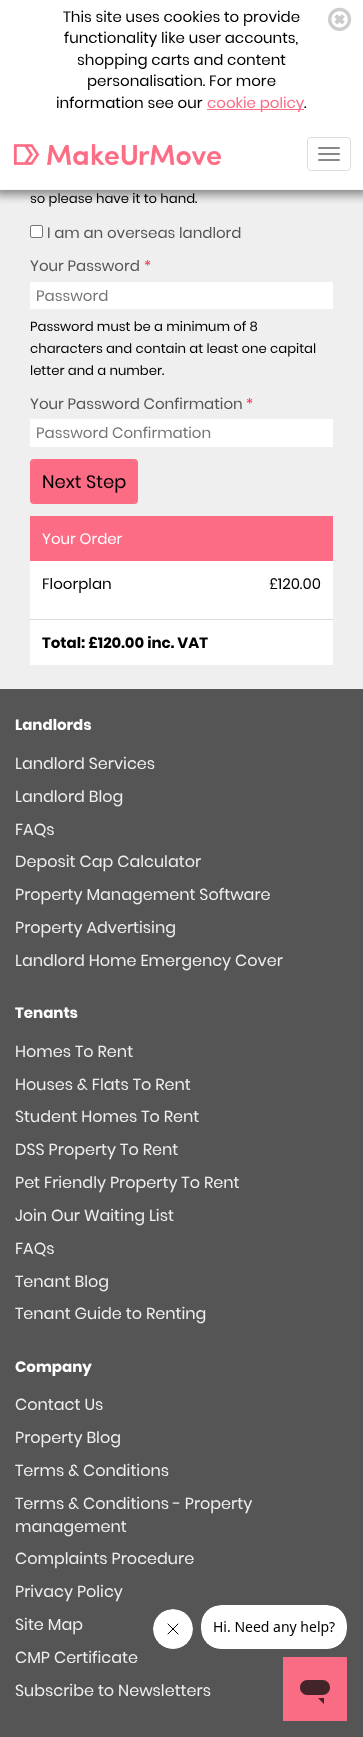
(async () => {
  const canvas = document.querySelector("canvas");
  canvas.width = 363;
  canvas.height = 1737;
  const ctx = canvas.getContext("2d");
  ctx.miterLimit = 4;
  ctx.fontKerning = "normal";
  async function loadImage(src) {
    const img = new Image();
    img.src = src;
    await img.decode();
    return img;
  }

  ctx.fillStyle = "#efefef";
  ctx.fillRect(0, 0, 363, 1737);
  ctx.fillStyle = "#888888";
  ctx.filter = "blur(5px)";
  ctx.beginPath();
  ctx.rect(-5, -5, 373, 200);
  ctx.fill();
  ctx.filter = "none";
  ctx.fillStyle = "#ffffff";
  ctx.fillRect(0, 0, 363, 189);
  ctx.fillStyle = "#f7f7f7";
  ctx.fillRect(0, 189, 363, 1);
  ctx.drawImage(await loadImage("img/1.png"), 328, 7, 24, 24);
  ctx.fillStyle = "#fc6c85";
  ctx.fillRect(207, 109, 97, 1);
  ctx.drawImage(await loadImage("img/2.png"), 13, 144, 209, 22);
  ctx.beginPath();
  ctx.roundRect(307.5, 137.5, 43, 33, 3.5);
  ctx.strokeStyle = "#dddddd";
  ctx.stroke();
  ctx.fillStyle = "#888888";
  ctx.beginPath();
  ctx.roundRect(318, 147, 22, 2, 1);
  ctx.fill();
  ctx.beginPath();
  ctx.roundRect(318, 153, 22, 2, 1);
  ctx.fill();
  ctx.beginPath();
  ctx.roundRect(318, 159, 22, 2, 1);
  ctx.fill();
  ctx.fillStyle = "#ffffff";
  ctx.beginPath();
  ctx.roundRect(30.5, 225.5, 12, 12, 1.5);
  ctx.fill();
  ctx.strokeStyle = "#767676";
  ctx.stroke();
  ctx.fillRect(30, 282, 303, 27);
  ctx.fillRect(30, 419, 303, 28);
  ctx.fillStyle = "#fc6c85";
  ctx.beginPath();
  ctx.roundRect(30, 459, 108, 45, 4);
  ctx.fill();
  for (const [x, y, w, h, color] of [
    [30, 561, 303, 104, "#ffffff"],
    [30, 516, 303, 45, "#fc6c85"],
    [30, 619, 303, 1, "#d8dbdd"],
    [0, 689, 363, 1048, "#555555"],
  ]) {
    ctx.fillStyle = color;
    ctx.fillRect(x, y, w, h);
  }
  ctx.drawImage(await loadImage("img/3.png"), 153, 1609, 40, 40);
  ctx.drawImage(await loadImage("img/4.png"), 201, 1605, 146, 44);
  ctx.drawImage(await loadImage("img/5.png"), 283, 1657, 64, 64);
  ctx.font = "15px Poppins";
  ctx.fillStyle = "#000000";
  for (const [text, x, y] of [
    ["This site uses cookies to provide", 63, 22],
    ["functionality like user accounts,", 64, 43],
    ["shopping carts and content", 77, 65],
    ["personalisation. For more", 87, 86],
    ["information see our", 56, 108],
  ]) {
    ctx.fillText(text, x, y);
  }
  ctx.fillStyle = "#fc6c85";
  ctx.fillText("cookie policy", 207, 108);
  ctx.fillStyle = "#000000";
  ctx.fillText(".", 304, 108);
  ctx.font = "13.2px Poppins";
  ctx.fillText("so please have it to hand.", 30, 203);
  ctx.font = "15px Poppins";
  ctx.fillStyle = "#555555";
  ctx.fillText("I am an overseas landlord", 47, 238);
  ctx.fillText("Your Password", 30, 271);
  ctx.fillStyle = "#f73656";
  ctx.fillText("*", 144, 271);
  ctx.fillStyle = "#757575";
  ctx.fillText("Password", 36, 301);
  ctx.font = "13.2px Poppins";
  ctx.fillStyle = "#000000";
  for (const [text, x, y] of [
    ["Password must be a minimum of 8", 30, 331],
    ["characters and contain at least one capital", 30, 353],
    ["letter and a number.", 30, 375],
  ]) {
    ctx.fillText(text, x, y);
  }
  ctx.font = "15px Poppins";
  ctx.fillStyle = "#555555";
  ctx.fillText("Your Password Confirmation", 30, 409);
  ctx.fillStyle = "#f73656";
  ctx.fillText("*", 246, 409);
  ctx.fillStyle = "#757575";
  ctx.fillText("Password Confirmation", 36, 438);
  ctx.font = "18px Poppins";
  ctx.fillStyle = "#000000";
  ctx.fillText("Next Step", 42, 488);
  ctx.font = "15px Poppins";
  ctx.fillStyle = "#ffffff";
  ctx.fillText("Your Order", 42, 544);
  ctx.fillStyle = "#000000";
  ctx.fillText("Floorplan", 42, 589);
  ctx.fillText("£120.00", 269, 589);
  ctx.font = "bold 15px Poppins";
  ctx.fillText("Total: £120.00 inc. VAT", 42, 648);
  ctx.fillStyle = "#ffffff";
  ctx.fillText("Landlords", 15, 730);
  ctx.font = "16px Poppins";
  ctx.fillStyle = "#efefef";
  for (const [text, x, y] of [
    ["Landlord Services", 15, 769],
    ["Landlord Blog", 15, 802],
    ["FAQs", 15, 835],
    ["Deposit Cap Calculator", 15, 867],
    ["Property Management Software", 15, 900],
    ["Property Advertising", 15, 933],
    ["Landlord Home Emergency Cover", 15, 966],
  ]) {
    ctx.fillText(text, x, y);
  }
  ctx.font = "bold 15px Poppins";
  ctx.fillStyle = "#ffffff";
  ctx.fillText("Tenants", 15, 1018);
  ctx.font = "16px Poppins";
  ctx.fillStyle = "#efefef";
  for (const [text, x, y] of [
    ["Homes To Rent", 15, 1057],
    ["Houses & Flats To Rent", 15, 1090],
    ["Student Homes To Rent", 15, 1122],
    ["DSS Property To Rent", 15, 1155],
    ["Pet Friendly Property To Rent", 15, 1188],
    ["Join Our Waiting List", 15, 1221],
    ["FAQs", 15, 1254],
    ["Tenant Blog", 15, 1287],
    ["Tenant Guide to Renting", 15, 1319],
  ]) {
    ctx.fillText(text, x, y);
  }
  ctx.font = "bold 15px Poppins";
  ctx.fillStyle = "#ffffff";
  ctx.fillText("Company", 15, 1372);
  ctx.font = "16px Poppins";
  ctx.fillStyle = "#efefef";
  for (const [text, x, y] of [
    ["Contact Us", 15, 1410],
    ["Property Blog", 15, 1443],
    ["Terms & Conditions", 15, 1476],
    ["Terms & Conditions - Property", 15, 1509],
    ["management", 15, 1532],
    ["Complaints Procedure", 15, 1564],
    ["Privacy Policy", 15, 1597],
    ["Site Map", 15, 1630],
    ["CMP Certificate", 15, 1663],
    ["Subscribe to Newsletters", 15, 1696],
  ]) {
    ctx.fillText(text, x, y);
  }
})();
